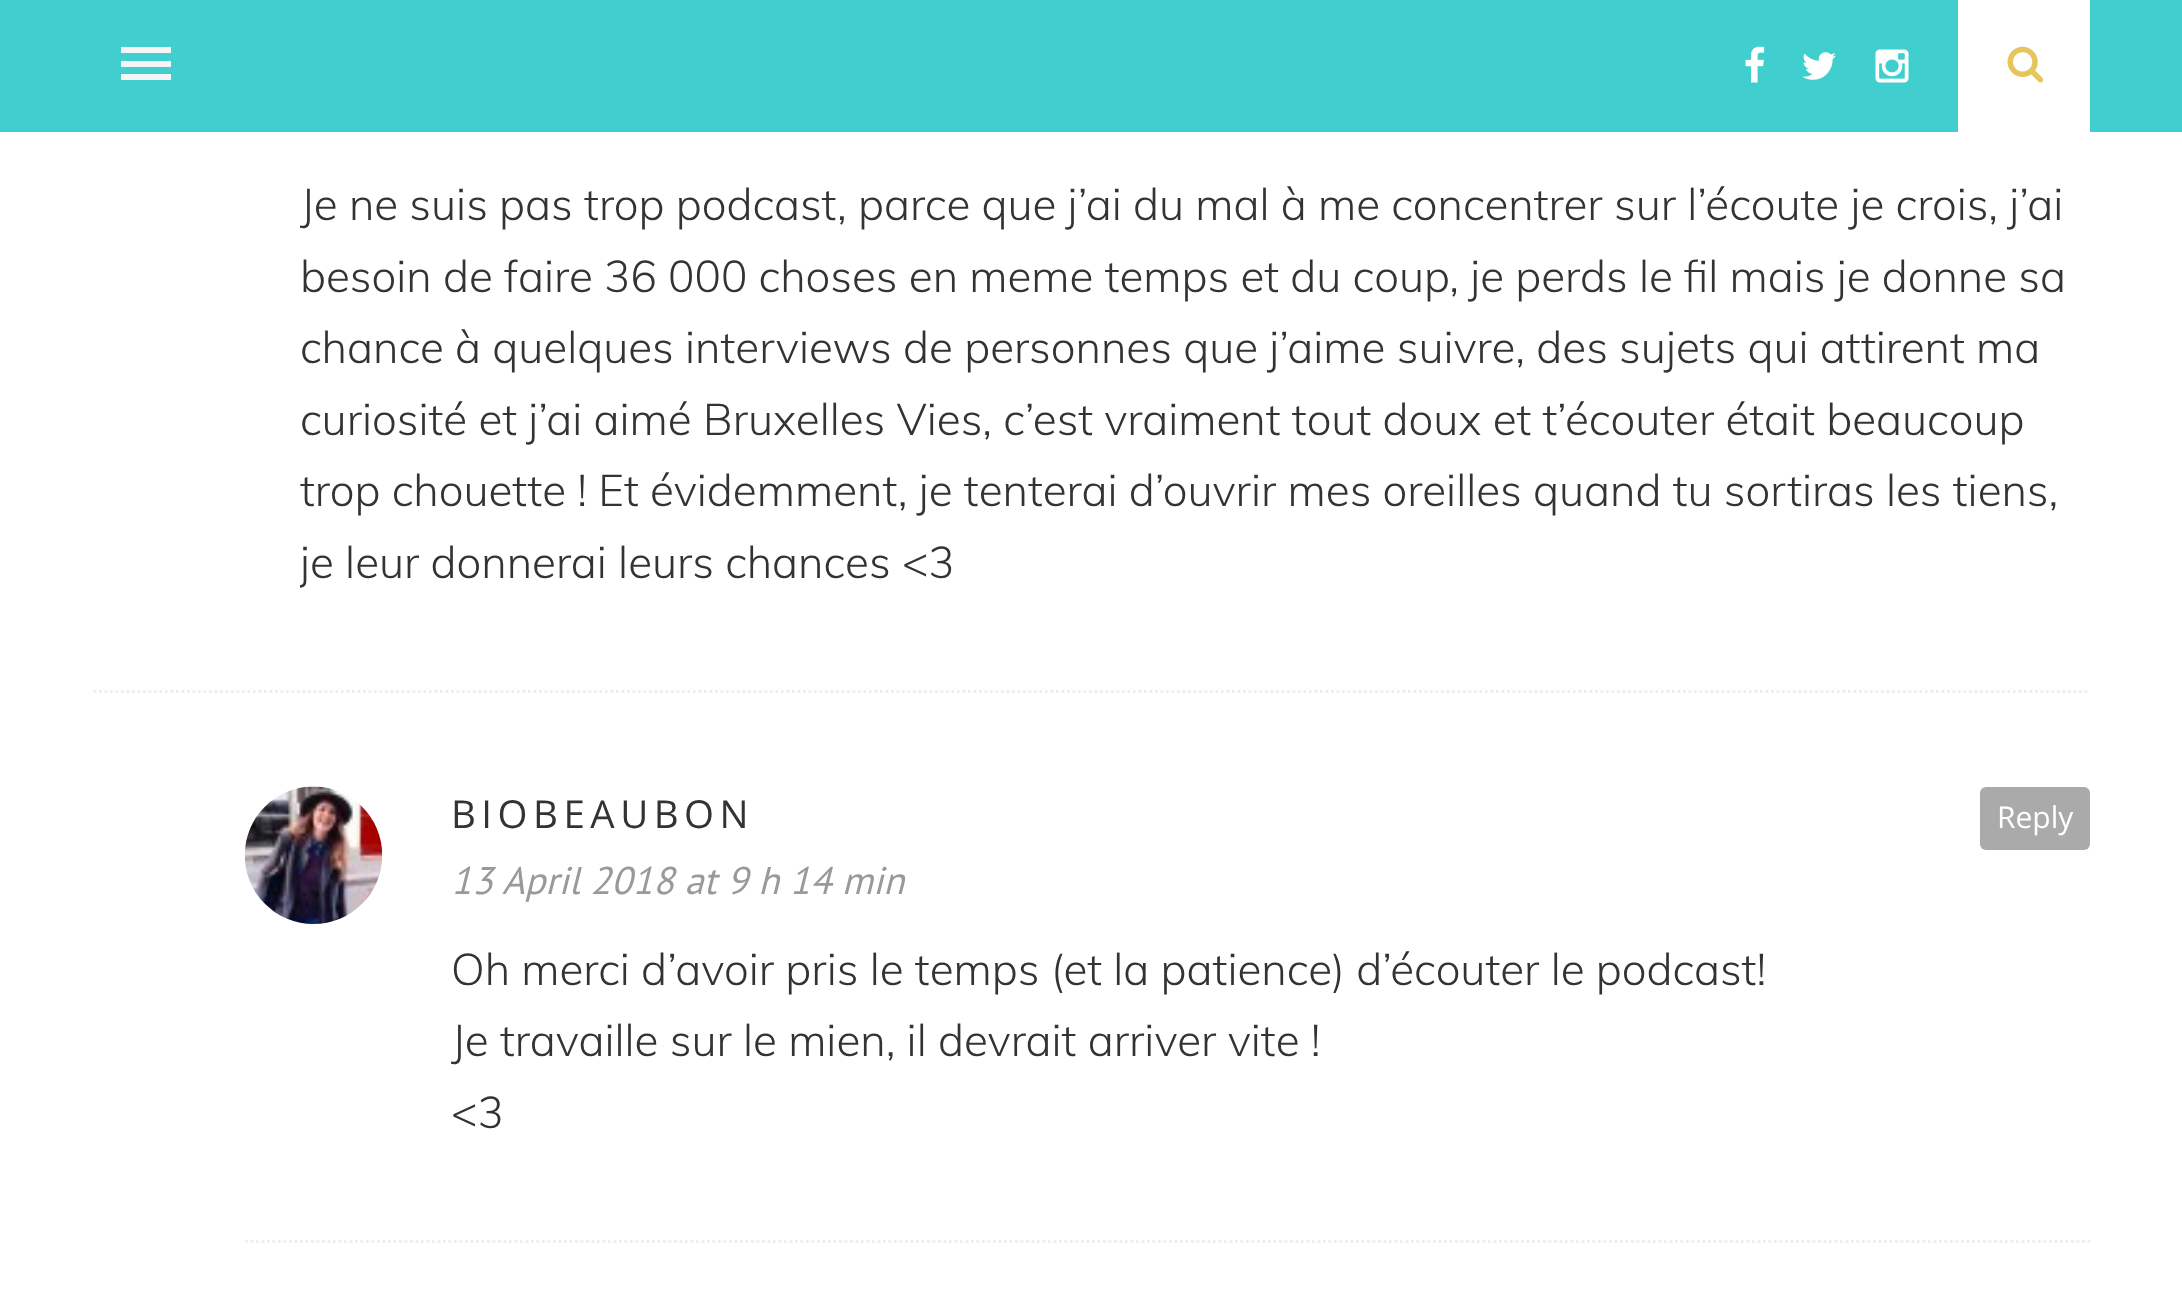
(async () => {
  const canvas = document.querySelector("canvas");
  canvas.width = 2182;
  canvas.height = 1307;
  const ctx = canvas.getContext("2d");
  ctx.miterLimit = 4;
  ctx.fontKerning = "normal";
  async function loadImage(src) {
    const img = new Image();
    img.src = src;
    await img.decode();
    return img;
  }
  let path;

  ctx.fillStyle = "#ffffff";
  ctx.fillRect(0, 0, 2182, 1307);
  for (const [x, y, w, h, color] of [
    [0, 0, 2182, 132, "#40cece"],
    [121, 47, 50, 6, "#f5f5f5"],
    [121, 61, 50, 6, "#f5f5f5"],
    [121, 74, 50, 6, "#f5f5f5"],
  ]) {
    ctx.fillStyle = color;
    ctx.fillRect(x, y, w, h);
  }
  ctx.drawImage(await loadImage("img/1.png"), 1745, 46, 20, 37);
  ctx.drawImage(await loadImage("img/2.png"), 1802, 52, 34, 28);
  ctx.drawImage(await loadImage("img/3.png"), 1875, 49, 34, 34);
  ctx.fillStyle = "#ffffff";
  ctx.fillRect(1958, 0, 132, 132);
  ctx.drawImage(await loadImage("img/4.png"), 2007, 46, 37, 37);
  path = new Path2D("M93.5 691.5H2090");
  ctx.strokeStyle = "#eeeeee";
  ctx.lineWidth = 2.8;
  ctx.setLineDash([2.75, 2.75]);
  ctx.stroke(path);
  path = new Path2D("M245 1241.5H2090");
  ctx.stroke(path);
  ctx.drawImage(await loadImage("img/5.png"), 244, 786, 139, 138);
  ctx.fillStyle = "#aaaaaa";
  ctx.beginPath();
  ctx.roundRect(1980, 787, 110, 63, 6);
  ctx.fill();
  ctx.save();
  ctx.beginPath();
  ctx.rect(300, 22, 1790, 575);
  ctx.clip();
  ctx.font = "300 44px Muli";
  ctx.fillStyle = "#333333";
  ctx.fillText("Je ne suis pas trop podcast, parce que j’ai du mal à me concentrer sur l’écoute je crois, j’ai", 300, 220);
  ctx.restore();
  ctx.font = "300 44px Muli";
  ctx.fillStyle = "#333333";
  for (const [text, x, y] of [
    ["besoin de faire 36 000 choses en meme temps et du coup, je perds le fil mais je donne sa", 300, 292],
    ["chance à quelques interviews de personnes que j’aime suivre, des sujets qui attirent ma", 300, 363],
    ["curiosité et j’ai aimé Bruxelles Vies, c’est vraiment tout doux et t’écouter était beaucoup", 300, 435],
    ["trop chouette ! Et évidemment, je tenterai d’ouvrir mes oreilles quand tu sortiras les tiens,", 300, 506],
  ]) {
    ctx.fillText(text, x, y);
  }
  ctx.save();
  ctx.beginPath();
  ctx.rect(300, 22, 1790, 575);
  ctx.clip();
  ctx.fillText("je leur donnerai leurs chances <3", 300, 578);
  ctx.restore();
  ctx.letterSpacing = "5.5px";
  ctx.font = "38.5px Open Sans";
  ctx.fillText("BIOBEAUBON", 451, 828);
  ctx.letterSpacing = "0px";
  ctx.font = "30px Open Sans";
  ctx.fillStyle = "#ffffff";
  ctx.fillText("Reply", 1997, 828);
  ctx.font = "italic 38.5px PT Sans";
  ctx.fillStyle = "#999999";
  ctx.fillText("13 April 2018 at 9 h 14 min", 451, 894);
  ctx.font = "300 44px Muli";
  ctx.fillStyle = "#333333";
  ctx.fillText("Oh merci d’avoir pris le temps (et la patience) d’écouter le podcast!", 451, 985);
  ctx.save();
  ctx.beginPath();
  ctx.rect(451, 787, 1639, 360);
  ctx.clip();
  ctx.fillText("Je travaille sur le mien, il devrait arriver vite !", 451, 1056);
  ctx.restore();
  ctx.fillText("<3", 451, 1128);
})();
